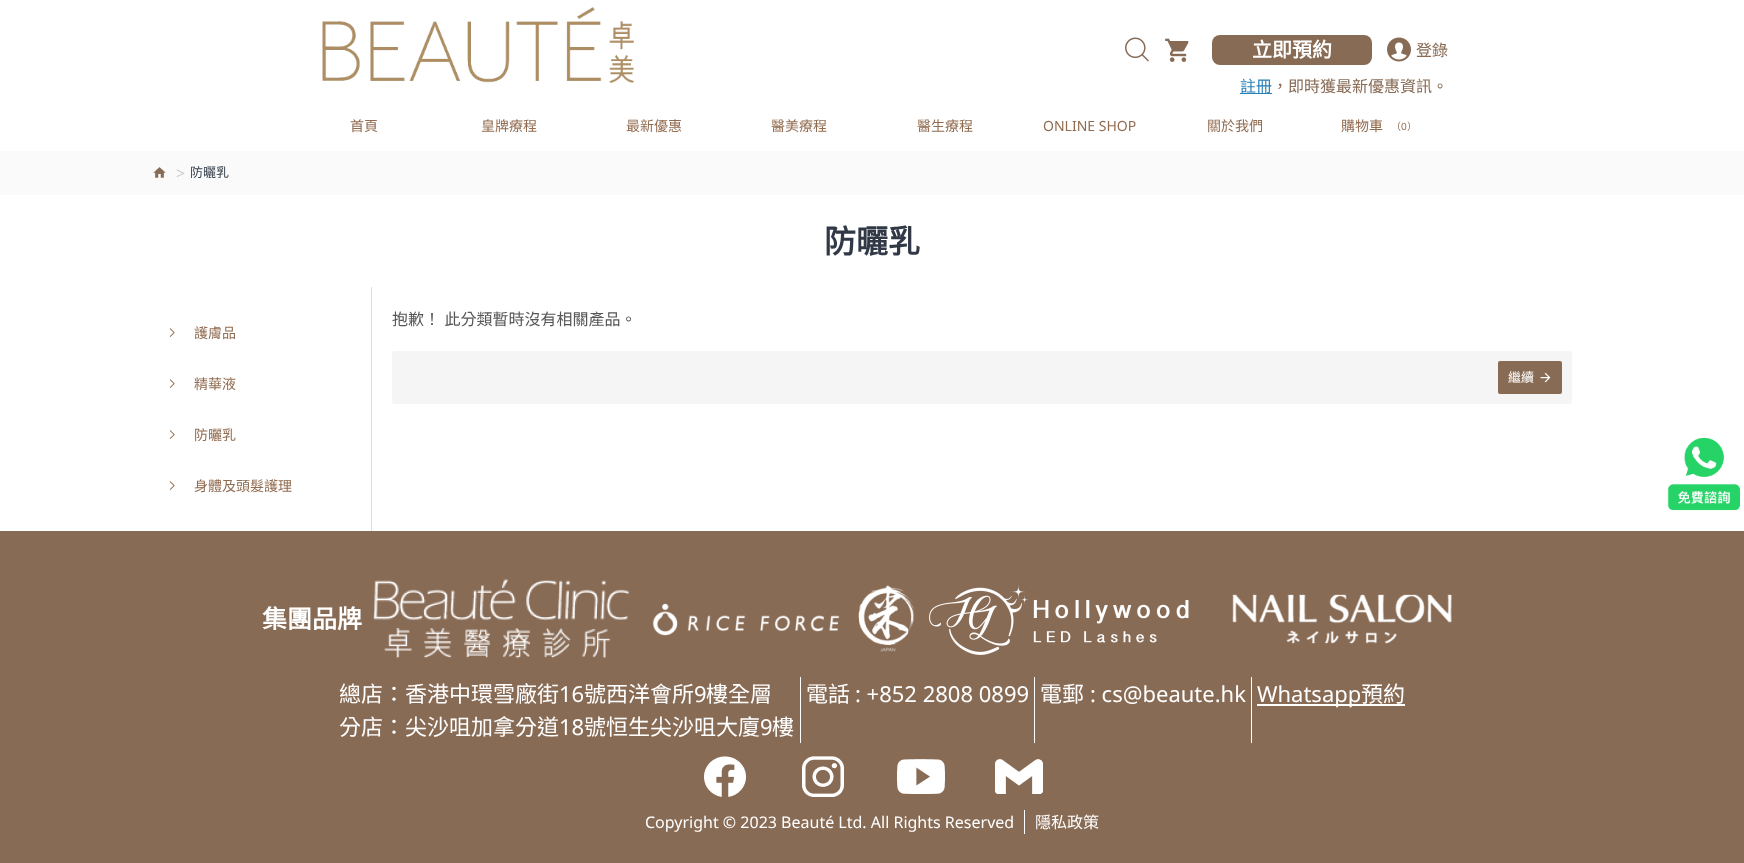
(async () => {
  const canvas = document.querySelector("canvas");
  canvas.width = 1744;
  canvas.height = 863;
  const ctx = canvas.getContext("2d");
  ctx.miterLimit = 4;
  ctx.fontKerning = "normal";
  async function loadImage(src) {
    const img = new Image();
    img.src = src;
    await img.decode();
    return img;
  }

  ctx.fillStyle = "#ffffff";
  ctx.fillRect(0, 0, 1744, 863);
  ctx.drawImage(await loadImage("img/1.png"), 322, 7, 312, 76);
  ctx.drawImage(await loadImage("img/2.png"), 1125, 37, 24, 25);
  ctx.drawImage(await loadImage("img/3.png"), 1165, 38, 24, 24);
  ctx.fillStyle = "#886b55";
  ctx.beginPath();
  ctx.roundRect(1212, 35, 160, 30, 8);
  ctx.fill();
  ctx.drawImage(await loadImage("img/4.png"), 1387, 37, 24, 25);
  ctx.fillStyle = "#2980b9";
  ctx.fillRect(1240, 93, 32, 1);
  ctx.fillStyle = "#fafafa";
  ctx.fillRect(0, 151, 1744, 44);
  ctx.drawImage(await loadImage("img/5.png"), 153, 167, 13, 11);
  ctx.fillStyle = "#dddddd";
  ctx.fillRect(371, 287, 1, 244);
  ctx.drawImage(await loadImage("img/6.png"), 169, 328, 6, 9);
  ctx.drawImage(await loadImage("img/6.png"), 169, 379, 6, 9);
  ctx.drawImage(await loadImage("img/6.png"), 169, 430, 6, 9);
  ctx.drawImage(await loadImage("img/6.png"), 169, 481, 6, 9);
  ctx.fillStyle = "#f5f5f5";
  ctx.beginPath();
  ctx.roundRect(392, 351, 1180, 53, 3);
  ctx.fill();
  ctx.fillStyle = "#886b55";
  ctx.beginPath();
  ctx.roundRect(1498, 361, 64, 33, 2);
  ctx.fill();
  ctx.drawImage(await loadImage("img/7.png"), 1540, 372, 11, 11);
  ctx.drawImage(await loadImage("img/8.png"), 1667, 437, 73, 74);
  ctx.fillRect(0, 531, 1744, 332);
  ctx.drawImage(await loadImage("img/9.png"), 373, 579, 257, 80);
  ctx.drawImage(await loadImage("img/10.png"), 652, 585, 263, 67);
  ctx.drawImage(await loadImage("img/11.png"), 929, 583, 260, 72);
  ctx.drawImage(await loadImage("img/12.png"), 1232, 594, 220, 50);
  for (const [x, y, w, h, color] of [
    [800, 677, 1, 66, "#ffffff"],
    [1034, 677, 1, 66, "#ffffff"],
    [1251, 677, 1, 66, "#ffffff"],
    [1257, 704, 148, 2, "#ffffff"],
  ]) {
    ctx.fillStyle = color;
    ctx.fillRect(x, y, w, h);
  }
  ctx.drawImage(await loadImage("img/13.png"), 704, 756, 42, 41);
  ctx.drawImage(await loadImage("img/14.png"), 802, 756, 42, 41);
  ctx.drawImage(await loadImage("img/15.png"), 897, 759, 48, 35);
  ctx.drawImage(await loadImage("img/16.png"), 995, 759, 48, 35);
  ctx.fillRect(1024, 810, 1, 24);
  ctx.font = "bold 20px Noto Sans CJK TC";
  ctx.fillText("立即預約", 1252, 57);
  ctx.font = "16px Noto Sans CJK TC";
  ctx.fillStyle = "#886b55";
  ctx.fillText("登錄", 1416, 56);
  ctx.fillStyle = "#2980b9";
  ctx.fillText("註冊", 1240, 92);
  ctx.fillStyle = "#886b55";
  ctx.fillText("，即時獲最新優惠資訊。", 1272, 92);
  ctx.font = "14px Noto Sans CJK TC";
  ctx.fillStyle = "#926c51";
  for (const [text, x, y] of [
    ["首頁", 350, 131],
    ["皇牌療程", 481, 131],
    ["最新優惠", 626, 131],
    ["醫美療程", 771, 131],
    ["醫生療程", 917, 131],
  ]) {
    ctx.fillText(text, x, y);
  }
  ctx.font = "14px Noto Sans";
  ctx.fillText("ONLINE SHOP", 1043, 131);
  ctx.font = "14px Noto Sans CJK TC";
  ctx.fillText("關於我們", 1207, 131);
  ctx.fillText("購物車", 1341, 131);
  ctx.font = "10px Noto Sans CJK TC";
  ctx.fillText("（", 1391, 130);
  ctx.font = "10px Noto Sans";
  ctx.fillText("0", 1401, 130);
  ctx.font = "10px Noto Sans CJK TC";
  ctx.fillText("）", 1407, 130);
  ctx.font = "16px Noto Sans";
  ctx.fillStyle = "#cccccc";
  ctx.fillText(">", 176, 179);
  ctx.font = "13px Noto Sans CJK TC";
  ctx.fillStyle = "#38444f";
  ctx.fillText("防曬乳", 190, 177);
  ctx.font = "bold 32px Noto Sans CJK TC";
  ctx.fillStyle = "#313846";
  ctx.fillText("防曬乳", 824, 253);
  ctx.font = "14px Noto Sans CJK TC";
  ctx.fillStyle = "#926c51";
  for (const [text, x, y] of [
    ["護膚品", 194, 338],
    ["精華液", 194, 389],
    ["防曬乳", 194, 440],
    ["身體及頭髮護理", 194, 491],
  ]) {
    ctx.fillText(text, x, y);
  }
  ctx.wordSpacing = "1px";
  ctx.font = "16px Noto Sans CJK TC";
  ctx.fillStyle = "#575757";
  ctx.fillText("抱歉！ 此分類暫時沒有相關產品。", 392, 325);
  ctx.wordSpacing = "0px";
  ctx.font = "13px Noto Sans CJK TC";
  ctx.fillStyle = "#ffffff";
  ctx.fillText("繼續", 1508, 382);
  ctx.font = "bold 25px Noto Sans CJK TC";
  ctx.fillText("集團品牌", 262, 628);
  ctx.font = "22px Noto Sans CJK TC";
  ctx.fillText("總店：香港中環雪廠街", 339, 702);
  ctx.font = "22px Noto Sans";
  ctx.fillText("16", 559, 702);
  ctx.font = "22px Noto Sans CJK TC";
  ctx.fillText("號西洋會所", 584, 702);
  ctx.font = "22px Noto Sans";
  ctx.fillText("9", 694, 702);
  ctx.font = "22px Noto Sans CJK TC";
  ctx.fillText("樓全層", 706, 702);
  ctx.fillText("分店：尖沙咀加拿分道", 339, 735);
  ctx.font = "22px Noto Sans";
  ctx.fillText("18", 559, 735);
  ctx.font = "22px Noto Sans CJK TC";
  ctx.fillText("號恒生尖沙咀大廈", 584, 735);
  ctx.font = "22px Noto Sans";
  ctx.fillText("9", 760, 735);
  ctx.font = "22px Noto Sans CJK TC";
  ctx.fillText("樓", 772, 735);
  ctx.fillText("電話", 806, 702);
  ctx.font = "22px Noto Sans";
  ctx.fillText(": +852 2808 0899", 855, 702);
  ctx.font = "22px Noto Sans CJK TC";
  ctx.fillText("電郵", 1040, 702);
  ctx.font = "22px Noto Sans";
  ctx.fillText(": cs@beaute.hk", 1090, 702);
  ctx.fillText("Whatsapp", 1257, 702);
  ctx.font = "22px Noto Sans CJK TC";
  ctx.fillText("預約", 1361, 702);
  ctx.font = "16px Noto Sans";
  ctx.fillText("Copyright © 2023 Beauté Ltd. All Rights Reserved", 645, 828);
  ctx.font = "16px Noto Sans CJK TC";
  ctx.fillText("隱私政策", 1035, 828);
})();
